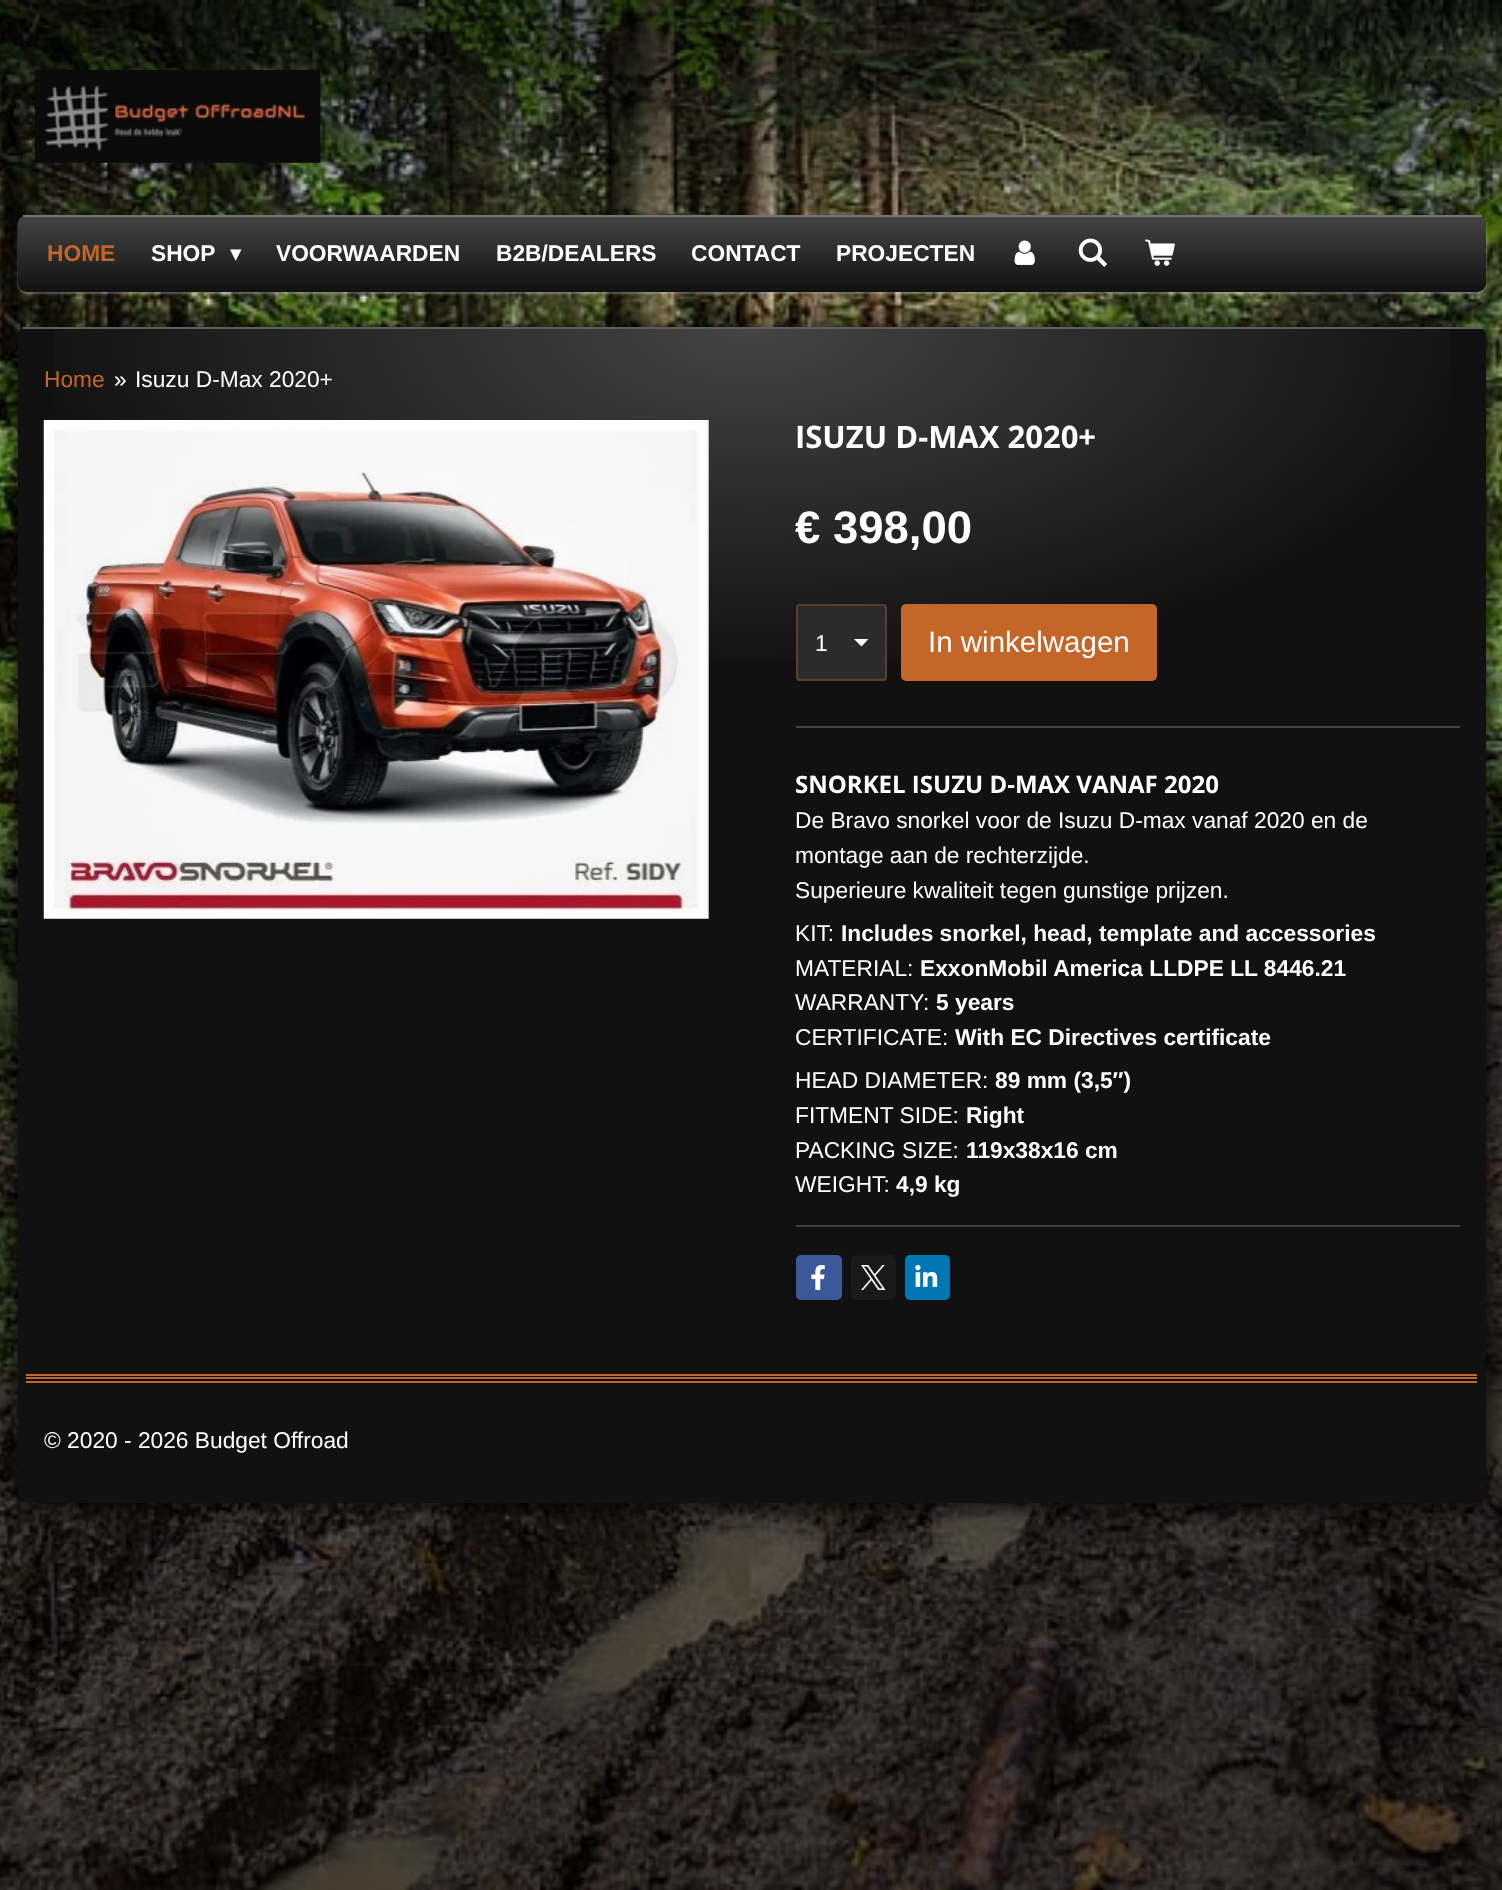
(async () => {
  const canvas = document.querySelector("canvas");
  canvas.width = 1502;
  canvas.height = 1890;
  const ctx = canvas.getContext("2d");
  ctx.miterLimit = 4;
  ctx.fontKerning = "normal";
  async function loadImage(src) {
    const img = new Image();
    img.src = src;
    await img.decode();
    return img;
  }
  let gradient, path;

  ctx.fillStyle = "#ffffff";
  ctx.fillRect(0, 0, 1502, 1890);
  ctx.drawImage(await loadImage("img/1.png"), 0, 0, 1502, 1890);
  ctx.fillStyle = "rgba(0, 0, 0, 0.6)";
  ctx.fillRect(0, 0, 1502, 35);
  ctx.drawImage(await loadImage("img/2.png"), 35, 70, 286, 93);
  ctx.fillStyle = "rgba(255, 255, 255, 0.3)";
  ctx.filter = "blur(1px)";
  ctx.beginPath();
  ctx.roundRect(18, 217, 1468, 77, 9);
  ctx.fill();
  ctx.filter = "none";
  ctx.fillStyle = "#111111";
  ctx.beginPath();
  ctx.roundRect(18, 215, 1468, 77, 9);
  ctx.fill();
  ctx.save();
  ctx.beginPath();
  ctx.roundRect(18, 215, 1468, 77, 9);
  ctx.clip();
  gradient = ctx.createLinearGradient(752, 217, 752, 142);
  gradient.addColorStop(0, "#111111");
  gradient.addColorStop(1, "#444444");
  ctx.fillStyle = gradient;
  ctx.fillRect(18, 216, 1468, 1);
  gradient = ctx.createLinearGradient(752, 292, 752, 217);
  gradient.addColorStop(0, "#111111");
  gradient.addColorStop(1, "#444444");
  ctx.fillStyle = gradient;
  ctx.beginPath();
  ctx.roundRect(18, 217, 1468, 75, [0, 0, 9, 9]);
  ctx.fill();
  ctx.restore();
  ctx.fillStyle = "#727272";
  ctx.fillRect(23, 215, 1459, 2);
  ctx.drawImage(await loadImage("img/3.png"), 1014, 240, 21, 25);
  ctx.drawImage(await loadImage("img/4.png"), 1078, 238, 30, 29);
  ctx.drawImage(await loadImage("img/5.png"), 1145, 239, 30, 27);
  ctx.fillStyle = "rgba(0, 0, 0, 0.6)";
  ctx.fillRect(0, 980, 1502, 910);
  ctx.fillStyle = "#000000";
  ctx.filter = "blur(13px)";
  ctx.beginPath();
  ctx.roundRect(18, 327, 1468, 1176, 9);
  ctx.fill();
  ctx.filter = "none";
  ctx.fillStyle = "#111111";
  ctx.beginPath();
  ctx.roundRect(18, 327, 1468, 1176, 9);
  ctx.fill();
  ctx.fillStyle = "#5e5e5e";
  ctx.fillRect(23, 327, 1459, 2);
  gradient = ctx.createRadialGradient(752, 689.96, 0, 752, 689.96, 734);
  gradient.addColorStop(0, "#444444");
  gradient.addColorStop(1, "rgba(68, 68, 68, 0)");
  ctx.fillStyle = gradient;
  ctx.beginPath();
  ctx.rect(54, 329, 1396, 332);
  ctx.save();
  ctx.clip();
  ctx.scale(1, 350 / 734);
  ctx.fillRect(0, 0, 1502, 3964);
  ctx.restore();
  ctx.drawImage(await loadImage("img/6.png"), 43, 420, 666, 499);
  ctx.fillStyle = "#2b2b2b";
  ctx.beginPath();
  ctx.roundRect(796, 604, 91, 77, 4);
  ctx.fill();
  ctx.fillStyle = "#ffffff";
  path = new Path2D("M861.5 646.5L854 639H868.5Z");
  ctx.fill(path);
  ctx.beginPath();
  ctx.roundRect(797, 605, 89, 75, 3);
  ctx.strokeStyle = "rgba(151, 81, 33, 0.5)";
  ctx.lineWidth = 2;
  ctx.stroke();
  ctx.fillStyle = "#c46627";
  ctx.beginPath();
  ctx.roundRect(901, 604, 256, 77, 5);
  ctx.fill();
  ctx.fillStyle = "#414141";
  ctx.fillRect(796, 726, 664, 2);
  ctx.fillRect(796, 1225, 664, 2);
  ctx.fillStyle = "#3b5998";
  ctx.beginPath();
  ctx.roundRect(796, 1255, 46, 45, 5);
  ctx.fill();
  ctx.drawImage(await loadImage("img/7.png"), 811, 1265, 14, 25);
  ctx.fillStyle = "#1a1a1a";
  ctx.beginPath();
  ctx.roundRect(851, 1255, 45, 45, 5);
  ctx.fill();
  ctx.drawImage(await loadImage("img/8.png"), 861, 1265, 25, 25);
  ctx.fillStyle = "#0077b5";
  ctx.beginPath();
  ctx.roundRect(905, 1255, 45, 45, 5);
  ctx.fill();
  ctx.drawImage(await loadImage("img/9.png"), 915, 1265, 23, 22);
  for (const [x, y, w, h, color] of [
    [26, 1374, 1451, 2, "#c46627"],
    [26, 1377, 1451, 2, "#c46627"],
    [26, 1381, 1451, 2, "#c46627"],
  ]) {
    ctx.fillStyle = color;
    ctx.fillRect(x, y, w, h);
  }
  ctx.font = "bold 22.75px Liberation Sans";
  ctx.fillText("HOME", 47, 261);
  ctx.fillStyle = "#ffffff";
  ctx.fillText("SHOP", 151, 261);
  ctx.font = "22.75px DejaVu Sans";
  ctx.fillText("▾", 230, 261);
  ctx.font = "bold 22.75px Liberation Sans";
  for (const [text, x, y] of [
    ["VOORWAARDEN", 276, 261],
    ["B2B/DEALERS", 496, 261],
    ["CONTACT", 691, 261],
    ["PROJECTEN", 836, 261],
  ]) {
    ctx.fillText(text, x, y);
  }
  ctx.font = "22.75px Liberation Sans";
  ctx.fillStyle = "#c46627";
  ctx.fillText("Home", 44, 387);
  ctx.fillStyle = "#ffffff";
  ctx.fillText("»", 114, 387);
  ctx.fillText("Isuzu D-Max 2020+", 135, 387);
  ctx.font = "bold 31px Open Sans";
  ctx.fillText("ISUZU D-MAX 2020+", 795, 448);
  ctx.font = "bold 45.5px Liberation Sans";
  ctx.fillText("€ 398,00", 795, 543);
  ctx.font = "22.75px Liberation Sans";
  ctx.fillText("1", 815, 651);
  ctx.font = "29.5px Liberation Sans";
  ctx.fillText("In winkelwagen", 928, 652);
  ctx.font = "bold 24px Open Sans";
  ctx.fillText("SNORKEL ISUZU D-MAX VANAF 2020", 795, 793);
  ctx.font = "22.75px Liberation Sans";
  for (const [text, x, y] of [
    ["De Bravo snorkel voor de Isuzu D-max vanaf 2020 en de", 795, 828],
    ["montage aan de rechterzijde.", 795, 863],
    ["Superieure kwaliteit tegen gunstige prijzen.", 795, 898],
    ["KIT:", 795, 941],
  ]) {
    ctx.fillText(text, x, y);
  }
  ctx.font = "bold 22.75px Liberation Sans";
  ctx.fillText("Includes snorkel, head, template and accessories", 841, 941);
  ctx.font = "22.75px Liberation Sans";
  ctx.fillText("MATERIAL:", 795, 976);
  ctx.font = "bold 22.75px Liberation Sans";
  ctx.fillText("ExxonMobil America LLDPE LL 8446.21", 920, 976);
  ctx.font = "22.75px Liberation Sans";
  ctx.fillText("WARRANTY:", 795, 1010);
  ctx.font = "bold 22.75px Liberation Sans";
  ctx.fillText("5 years", 936, 1010);
  ctx.font = "22.75px Liberation Sans";
  ctx.fillText("CERTIFICATE:", 795, 1045);
  ctx.font = "bold 22.75px Liberation Sans";
  ctx.fillText("With EC Directives certificate", 955, 1045);
  ctx.font = "22.75px Liberation Sans";
  ctx.fillText("HEAD DIAMETER:", 795, 1088);
  ctx.font = "bold 22.75px Liberation Sans";
  ctx.fillText("89 mm (3,5″)", 995, 1088);
  ctx.font = "22.75px Liberation Sans";
  ctx.fillText("FITMENT SIDE:", 795, 1123);
  ctx.font = "bold 22.75px Liberation Sans";
  ctx.fillText("Right", 966, 1123);
  ctx.font = "22.75px Liberation Sans";
  ctx.fillText("PACKING SIZE:", 795, 1158);
  ctx.font = "bold 22.75px Liberation Sans";
  ctx.fillText("119x38x16 cm", 966, 1158);
  ctx.font = "22.75px Liberation Sans";
  ctx.fillText("WEIGHT:", 795, 1192);
  ctx.font = "bold 22.75px Liberation Sans";
  ctx.fillText("4,9 kg", 896, 1192);
  ctx.font = "22.75px Liberation Sans";
  ctx.fillText("© 2020 - 2026 Budget Offroad", 44, 1448);
})();
